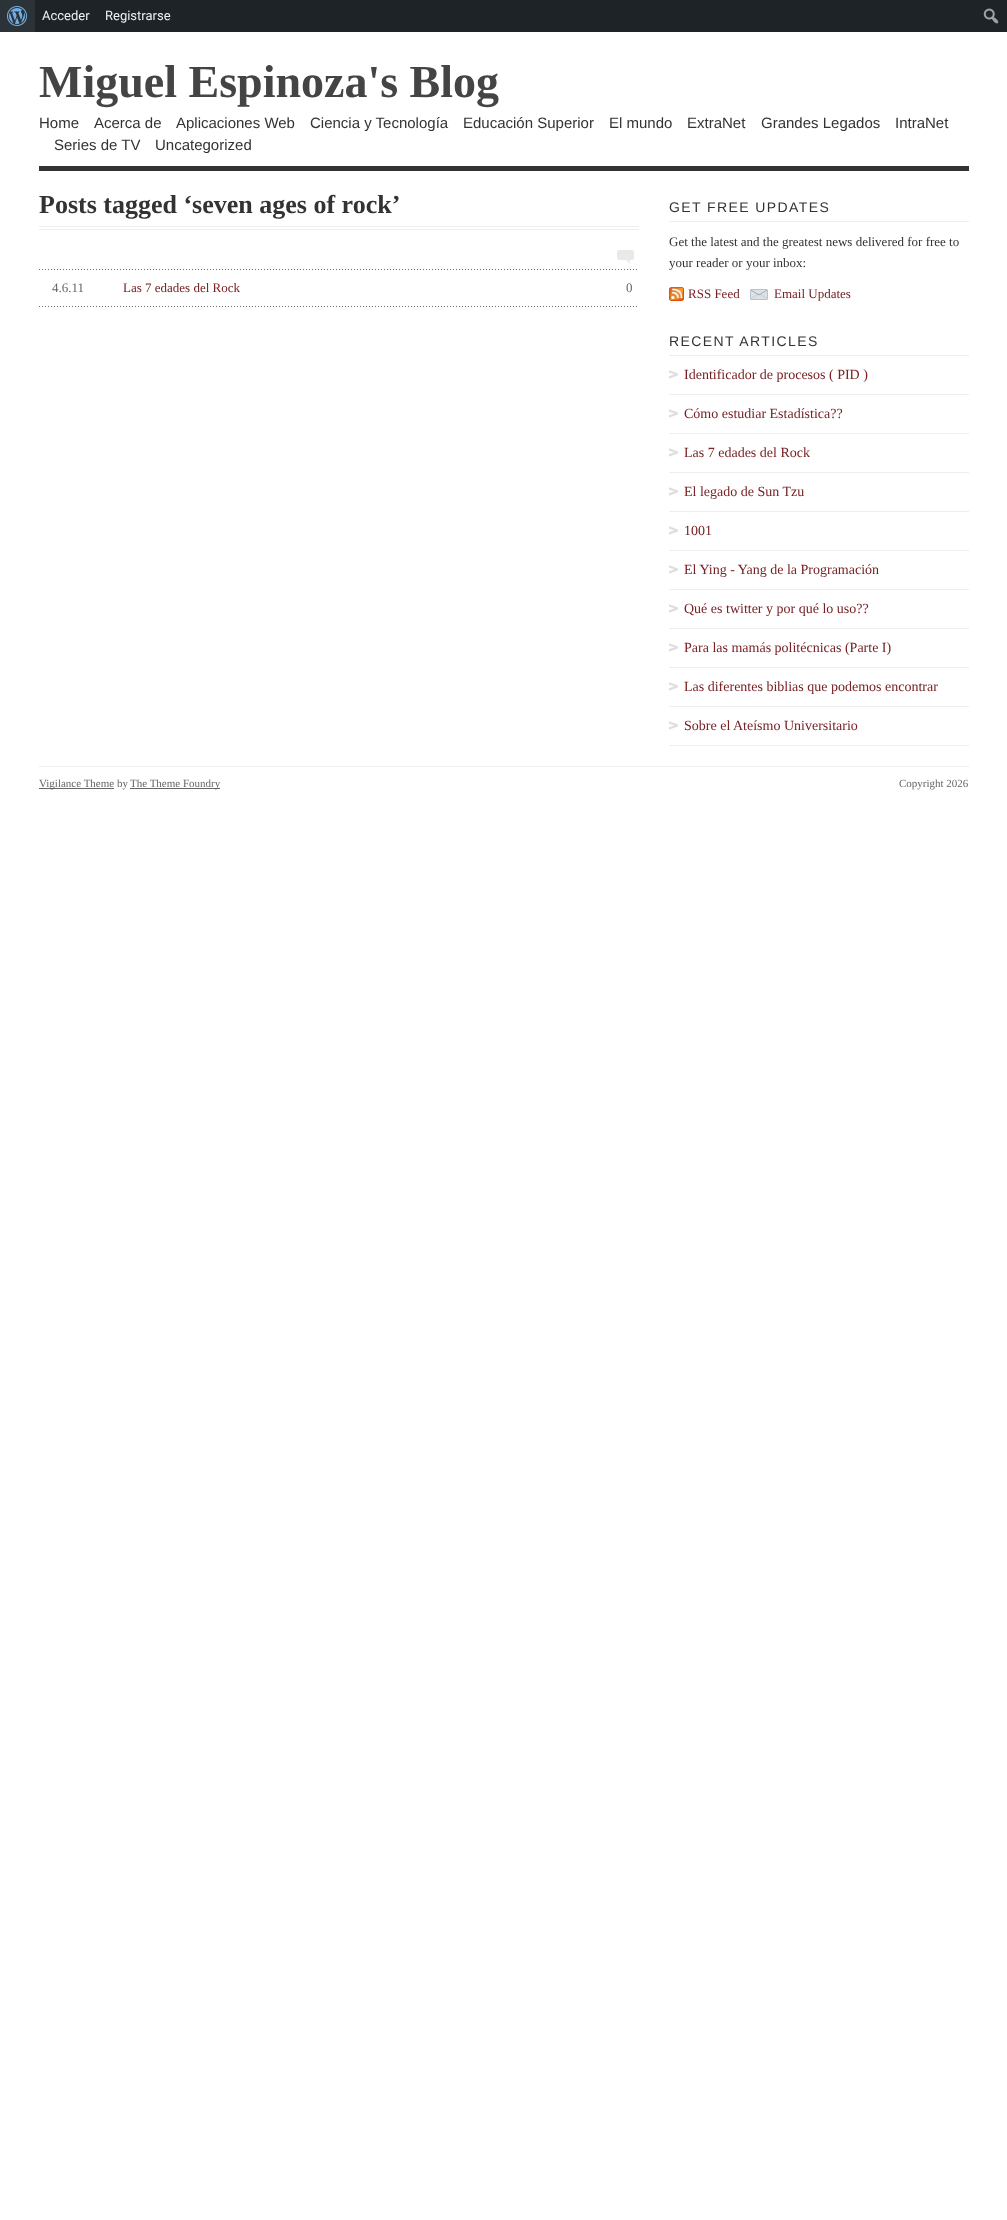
(async () => {
  const canvas = document.querySelector("canvas");
  canvas.width = 1007;
  canvas.height = 2220;
  const ctx = canvas.getContext("2d");
  ctx.miterLimit = 4;
  ctx.fontKerning = "normal";
  async function loadImage(src) {
    const img = new Image();
    img.src = src;
    await img.decode();
    return img;
  }

  ctx.fillStyle = "#ffffff";
  ctx.fillRect(0, 0, 1007, 2220);
  ctx.fillStyle = "#1d2327";
  ctx.fillRect(35, 0, 972, 32);
  ctx.fillStyle = "#2c3338";
  ctx.fillRect(0, 0, 35, 32);
  ctx.drawImage(await loadImage("img/1.png"), 7, 6, 20, 20);
  ctx.drawImage(await loadImage("img/2.png"), 983, 8, 16, 16);
  for (const [x, y, w, h, color] of [
    [39, 166, 930, 5, "#333333"],
    [39, 226, 600, 1, "#eeeeee"],
    [39, 229, 600, 1, "#eeeeee"],
  ]) {
    ctx.fillStyle = color;
    ctx.fillRect(x, y, w, h);
  }
  ctx.drawImage(await loadImage("img/3.png"), 617, 250, 17, 14);
  ctx.drawImage(await loadImage("img/4.png"), 39, 306, 598, 1);
  ctx.drawImage(await loadImage("img/4.png"), 39, 269, 598, 1);
  ctx.fillRect(669, 221, 300, 1);
  ctx.drawImage(await loadImage("img/5.png"), 669, 287, 15, 14);
  ctx.drawImage(await loadImage("img/6.png"), 750, 289, 18, 11);
  ctx.fillRect(669, 355, 300, 1);
  ctx.fillRect(669, 394, 300, 1);
  ctx.drawImage(await loadImage("img/7.png"), 669, 370, 9, 9);
  ctx.fillRect(669, 433, 300, 1);
  ctx.drawImage(await loadImage("img/7.png"), 669, 409, 9, 9);
  ctx.fillRect(669, 472, 300, 1);
  ctx.drawImage(await loadImage("img/7.png"), 669, 448, 9, 9);
  ctx.fillRect(669, 511, 300, 1);
  ctx.drawImage(await loadImage("img/7.png"), 669, 487, 9, 9);
  ctx.fillRect(669, 550, 300, 1);
  ctx.drawImage(await loadImage("img/7.png"), 669, 526, 9, 9);
  ctx.fillRect(669, 589, 300, 1);
  ctx.drawImage(await loadImage("img/7.png"), 669, 565, 9, 9);
  ctx.fillRect(669, 628, 300, 1);
  ctx.drawImage(await loadImage("img/7.png"), 669, 604, 9, 9);
  ctx.fillRect(669, 667, 300, 1);
  ctx.drawImage(await loadImage("img/7.png"), 669, 643, 9, 9);
  ctx.fillRect(669, 706, 300, 1);
  ctx.drawImage(await loadImage("img/7.png"), 669, 682, 9, 9);
  ctx.fillRect(669, 745, 300, 1);
  ctx.drawImage(await loadImage("img/7.png"), 669, 721, 9, 9);
  for (const [x, y, w, h, color] of [
    [39, 766, 930, 1, "#eeeeee"],
    [39, 788, 75, 1, "#666666"],
    [130, 788, 90, 1, "#666666"],
  ]) {
    ctx.fillStyle = color;
    ctx.fillRect(x, y, w, h);
  }
  ctx.font = "13px Roboto";
  ctx.fillStyle = "#f0f0f1";
  ctx.fillText("Acceder", 42, 20);
  ctx.fillText("Registrarse", 105, 20);
  ctx.font = "bold 46px Liberation Serif";
  ctx.fillStyle = "#444444";
  ctx.fillText("Miguel Espinoza's Blog", 39, 97);
  ctx.font = "15px Liberation Sans";
  ctx.fillStyle = "#333333";
  for (const [text, x, y] of [
    ["Home", 39, 128],
    ["Acerca de", 94, 128],
    ["Aplicaciones Web", 176, 128],
    ["Ciencia y Tecnología", 310, 128],
    ["Educación Superior", 463, 128],
    ["El mundo", 609, 128],
    ["ExtraNet", 687, 128],
    ["Grandes Legados", 761, 128],
    ["IntraNet", 895, 128],
    ["Series de TV", 54, 150],
    ["Uncategorized", 155, 150],
  ]) {
    ctx.fillText(text, x, y);
  }
  ctx.font = "bold 26px Liberation Serif";
  ctx.fillText("Posts tagged ‘seven ages of rock’", 39, 213);
  ctx.font = "13px Liberation Serif";
  ctx.fillStyle = "#666666";
  ctx.fillText("4.6.11", 52, 292);
  ctx.fillStyle = "#772124";
  ctx.fillText("Las 7 edades del Rock", 123, 292);
  ctx.fillStyle = "#666666";
  ctx.fillText("0", 626, 292);
  ctx.letterSpacing = "1.4px";
  ctx.font = "14px Liberation Sans";
  ctx.fillStyle = "#333333";
  ctx.fillText("GET FREE UPDATES", 669, 212);
  ctx.letterSpacing = "0px";
  ctx.font = "13px Liberation Serif";
  ctx.fillText("Get the latest and the greatest news delivered for free to", 669, 246);
  ctx.fillText("your reader or your inbox:", 669, 267);
  ctx.fillStyle = "#772124";
  ctx.fillText("RSS Feed", 688, 298);
  ctx.fillText("Email Updates", 774, 298);
  ctx.letterSpacing = "1.4px";
  ctx.font = "14px Liberation Sans";
  ctx.fillStyle = "#333333";
  ctx.fillText("RECENT ARTICLES", 669, 346);
  ctx.letterSpacing = "0px";
  ctx.font = "14px Liberation Serif";
  ctx.fillStyle = "#772124";
  for (const [text, x, y] of [
    ["Identificador de procesos ( PID )", 684, 379],
    ["Cómo estudiar Estadística??", 684, 418],
    ["Las 7 edades del Rock", 684, 457],
    ["El legado de Sun Tzu", 684, 496],
    ["1001", 684, 535],
    ["El Ying - Yang de la Programación", 684, 574],
    ["Qué es twitter y por qué lo uso??", 684, 613],
    ["Para las mamás politécnicas (Parte I)", 684, 652],
    ["Las diferentes biblias que podemos encontrar", 684, 691],
    ["Sobre el Ateísmo Universitario", 684, 730],
  ]) {
    ctx.fillText(text, x, y);
  }
  ctx.font = "11px Liberation Serif";
  ctx.fillStyle = "#666666";
  for (const [text, x, y] of [
    ["Vigilance Theme by", 39, 787],
    ["The Theme Foundry", 130, 787],
    ["Copyright 2026", 899, 787],
  ]) {
    ctx.fillText(text, x, y);
  }
})();
